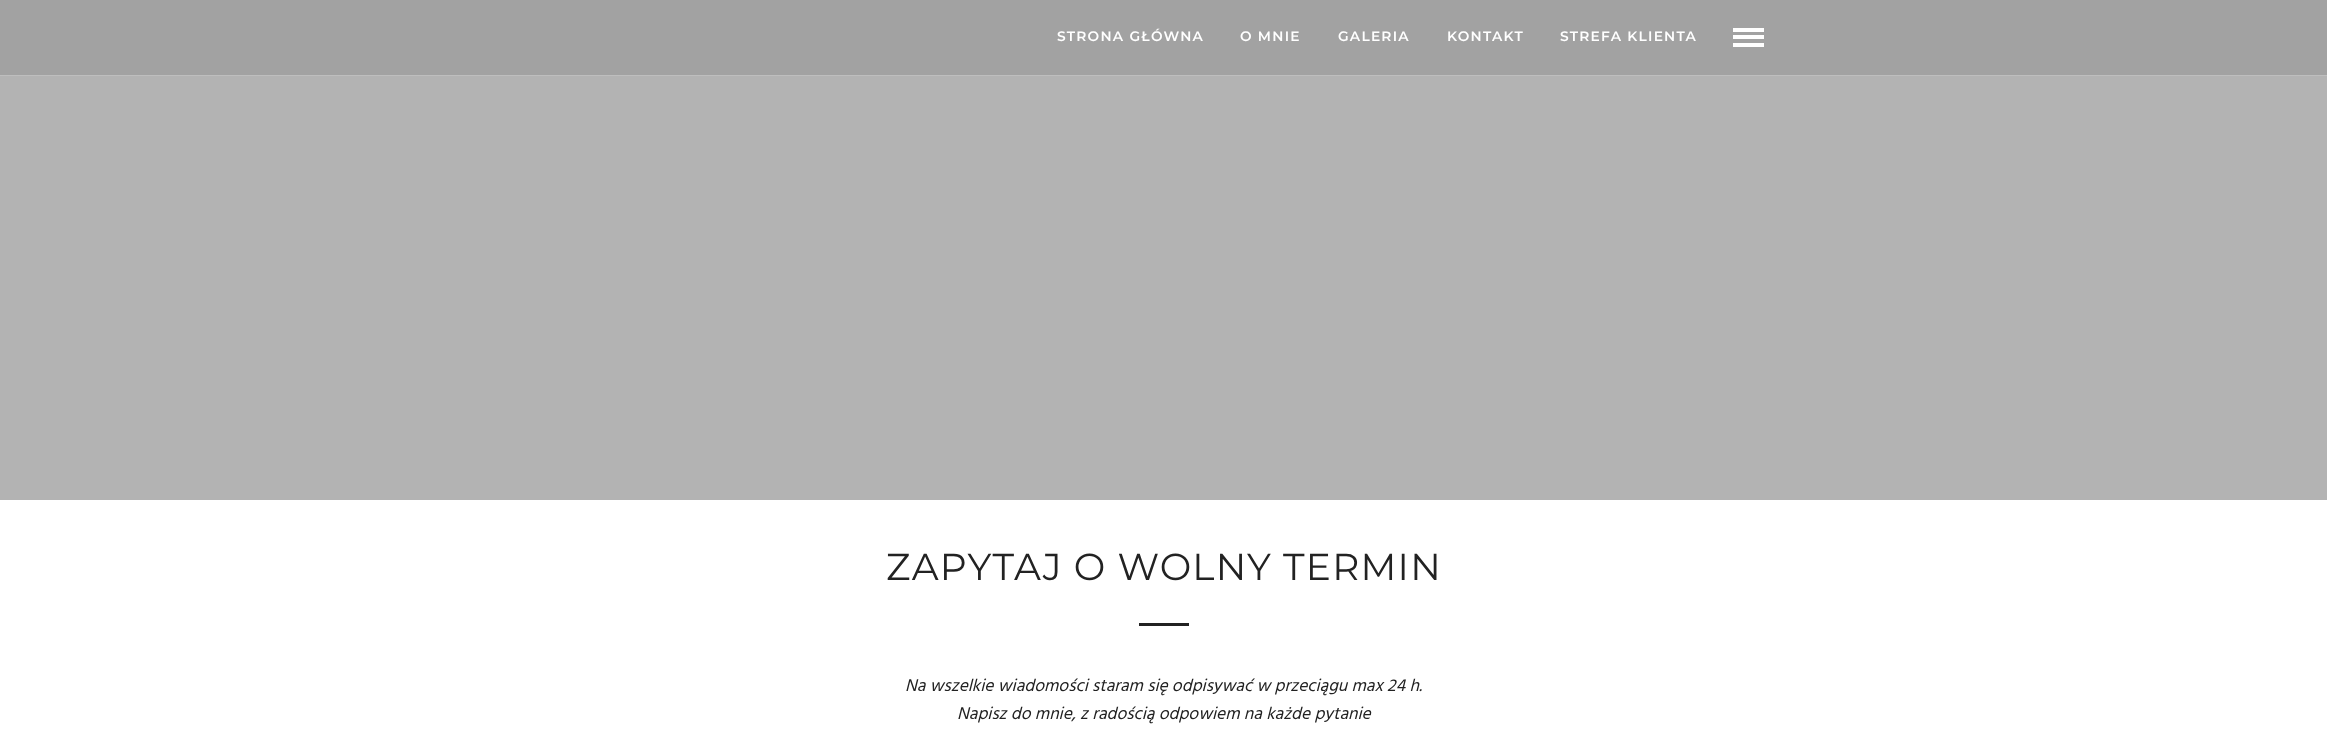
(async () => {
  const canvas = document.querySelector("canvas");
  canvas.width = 2327;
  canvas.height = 742;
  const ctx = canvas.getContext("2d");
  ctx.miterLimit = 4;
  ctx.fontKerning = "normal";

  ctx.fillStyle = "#ffffff";
  ctx.fillRect(0, 0, 2327, 742);
  for (const [x, y, w, h, color] of [
    [0, 0, 2327, 75, "#a2a2a2"],
    [0, 75, 2327, 1, "#bebebe"],
    [1733, 28, 31, 4, "#ffffff"],
    [1733, 35, 31, 4, "#ffffff"],
    [1733, 43, 31, 4, "#ffffff"],
    [0, 76, 2327, 424, "#b3b3b3"],
    [1139, 623, 50, 3, "#222222"],
  ]) {
    ctx.fillStyle = color;
    ctx.fillRect(x, y, w, h);
  }
  ctx.letterSpacing = "1.25px";
  ctx.font = "600 13.75px Montserrat";
  ctx.fillStyle = "#ffffff";
  for (const [text, x, y] of [
    ["STRONA GŁÓWNA", 1057, 41],
    ["O MNIE", 1240, 41],
    ["GALERIA", 1338, 41],
    ["KONTAKT", 1447, 41],
    ["STREFA KLIENTA", 1560, 41],
  ]) {
    ctx.fillText(text, x, y);
  }
  ctx.font = "100 37.5px Montserrat";
  ctx.fillStyle = "#222222";
  ctx.fillText("ZAPYTAJ O WOLNY TERMIN", 886, 580);
  ctx.letterSpacing = "0px";
  ctx.font = "italic 17.5px Hind";
  ctx.fillText("Na wszelkie wiadomości staram się odpisywać w przeciągu max 24 h.", 905, 691);
  ctx.fillText("Napisz do mnie, z radością odpowiem na każde pytanie", 957, 719);
})();
